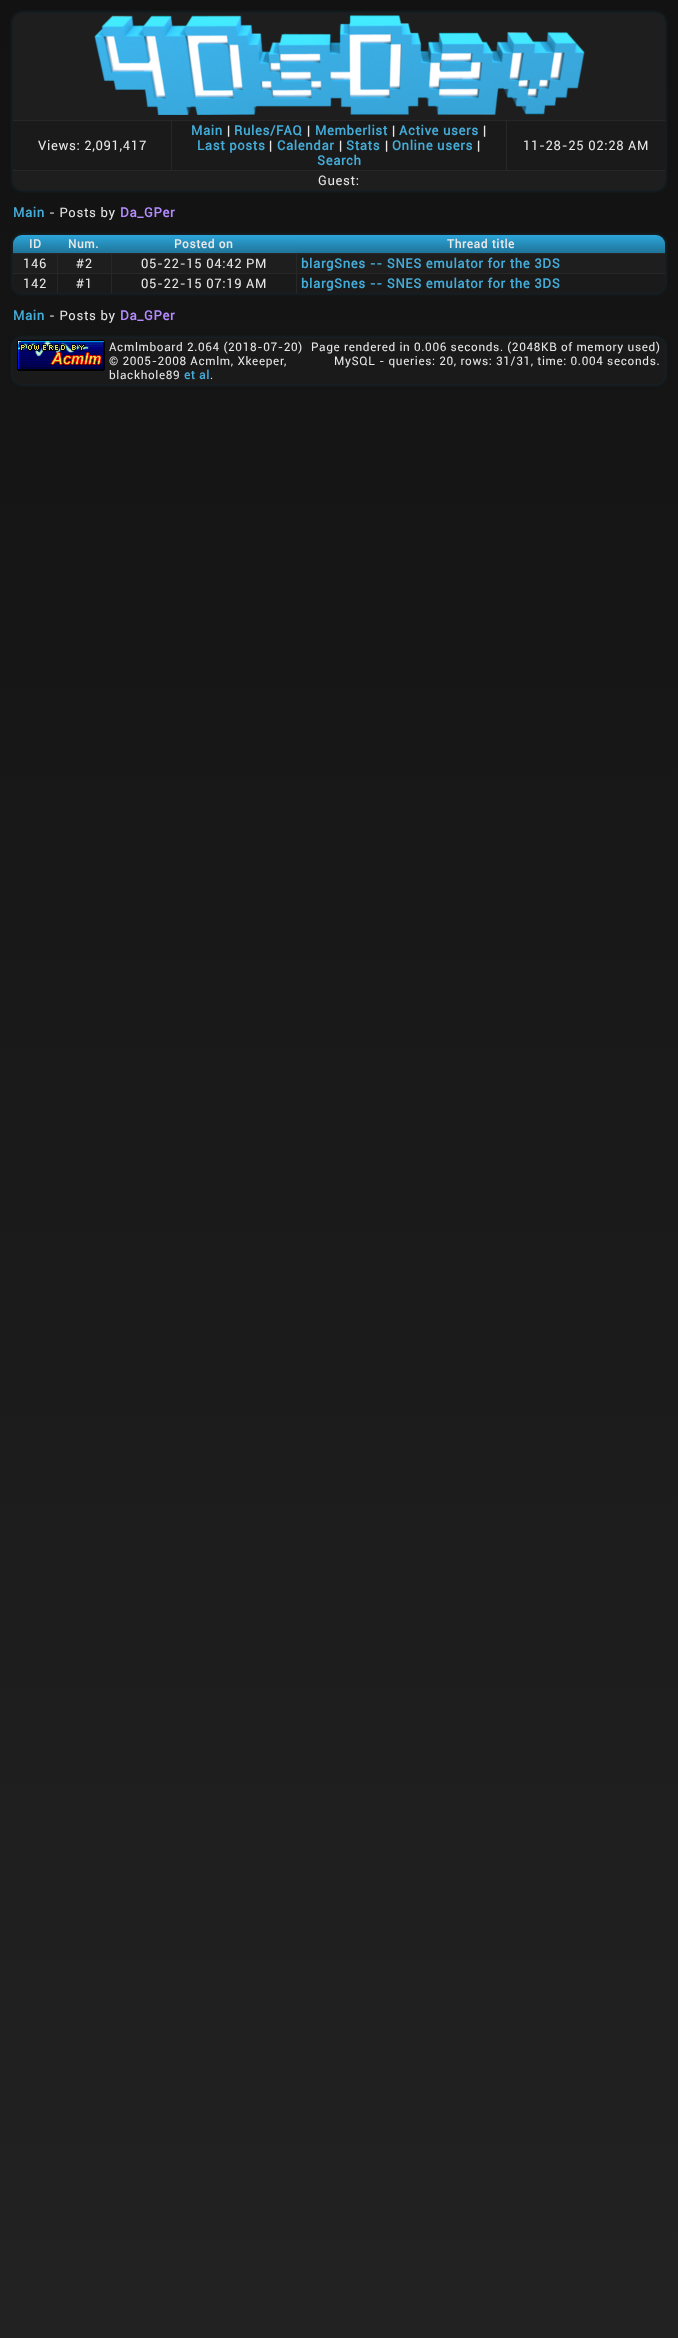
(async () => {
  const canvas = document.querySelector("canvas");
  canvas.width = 678;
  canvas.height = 2338;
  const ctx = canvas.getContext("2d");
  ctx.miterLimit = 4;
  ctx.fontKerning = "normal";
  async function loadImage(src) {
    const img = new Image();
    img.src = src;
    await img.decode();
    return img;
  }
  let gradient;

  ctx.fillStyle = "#ffffff";
  ctx.fillRect(0, 0, 678, 2338);
  gradient = ctx.createLinearGradient(339, 0, 339, 2338);
  gradient.addColorStop(0, "#121212");
  gradient.addColorStop(1, "#222222");
  ctx.fillStyle = gradient;
  ctx.fillRect(0, 0, 678, 2338);
  ctx.fillStyle = "rgba(44, 165, 218, 0.2)";
  ctx.filter = "blur(2px)";
  ctx.beginPath();
  ctx.roundRect(13, 13, 652, 177, 9);
  ctx.fill();
  ctx.filter = "none";
  ctx.fillStyle = "#1e1e1e";
  ctx.beginPath();
  ctx.roundRect(13, 13, 652, 107, [9, 9, 0, 0]);
  ctx.fill();
  ctx.drawImage(await loadImage("img/1.png"), 94, 15, 491, 100);
  for (const [x, y, w, h, color] of [
    [13, 121, 158, 49, "#1a1a1a"],
    [13, 120, 652, 1, "#272727"],
    [172, 121, 334, 49, "#1a1a1a"],
    [171, 120, 1, 50, "#272727"],
    [507, 121, 158, 49, "#1a1a1a"],
    [506, 120, 1, 50, "#272727"],
  ]) {
    ctx.fillStyle = color;
    ctx.fillRect(x, y, w, h);
  }
  ctx.fillStyle = "#1e1e1e";
  ctx.beginPath();
  ctx.roundRect(13, 170, 652, 20, [0, 0, 9, 9]);
  ctx.fill();
  ctx.fillStyle = "#272727";
  ctx.fillRect(13, 170, 652, 1);
  ctx.fillStyle = "rgba(44, 165, 218, 0.2)";
  ctx.filter = "blur(2px)";
  ctx.beginPath();
  ctx.roundRect(13, 235, 652, 58, 9);
  ctx.fill();
  ctx.filter = "none";
  ctx.fillStyle = "#2ca5da";
  ctx.beginPath();
  ctx.roundRect(13, 235, 44, 18, [9, 0, 0, 0]);
  ctx.fill();
  gradient = ctx.createLinearGradient(35, 235, 35, 253);
  gradient.addColorStop(0, "rgba(0, 0, 0, 0)");
  gradient.addColorStop(1, "rgba(0, 0, 0, 0.3)");
  ctx.fillStyle = gradient;
  ctx.beginPath();
  ctx.roundRect(13, 235, 44, 18, [9, 0, 0, 0]);
  ctx.fill();
  gradient = ctx.createLinearGradient(84, 235, 84, 253);
  gradient.addColorStop(0, "#2ca5da");
  gradient.addColorStop(1, "#1f7499");
  ctx.fillStyle = gradient;
  ctx.fillRect(57, 235, 54, 18);
  gradient = ctx.createLinearGradient(204, 235, 204, 253);
  gradient.addColorStop(0, "#2ca5da");
  gradient.addColorStop(1, "#1f7499");
  ctx.fillStyle = gradient;
  ctx.fillRect(111, 235, 185, 18);
  ctx.fillStyle = "#2ca5da";
  ctx.beginPath();
  ctx.roundRect(296, 235, 369, 18, [0, 9, 0, 0]);
  ctx.fill();
  gradient = ctx.createLinearGradient(481, 235, 481, 253);
  gradient.addColorStop(0, "rgba(0, 0, 0, 0)");
  gradient.addColorStop(1, "rgba(0, 0, 0, 0.3)");
  ctx.fillStyle = gradient;
  ctx.beginPath();
  ctx.roundRect(296, 235, 369, 18, [0, 9, 0, 0]);
  ctx.fill();
  for (const [x, y, w, h, color] of [
    [13, 254, 44, 19, "#1e1e1e"],
    [13, 253, 652, 1, "#272727"],
    [58, 254, 53, 19, "#1e1e1e"],
    [57, 253, 1, 20, "#272727"],
    [112, 254, 184, 19, "#1e1e1e"],
    [111, 253, 1, 20, "#272727"],
    [297, 254, 368, 19, "#1e1e1e"],
    [296, 253, 1, 20, "#272727"],
  ]) {
    ctx.fillStyle = color;
    ctx.fillRect(x, y, w, h);
  }
  ctx.fillStyle = "#1a1a1a";
  ctx.beginPath();
  ctx.roundRect(13, 273, 44, 20, [0, 0, 0, 9]);
  ctx.fill();
  for (const [x, y, w, h, color] of [
    [13, 273, 283, 1, "#272727"],
    [58, 274, 53, 19, "#1a1a1a"],
    [57, 273, 1, 20, "#272727"],
    [112, 274, 184, 19, "#1a1a1a"],
    [111, 273, 1, 20, "#272727"],
  ]) {
    ctx.fillStyle = color;
    ctx.fillRect(x, y, w, h);
  }
  ctx.fillStyle = "#1a1a1a";
  ctx.beginPath();
  ctx.roundRect(296, 273, 369, 20, [0, 0, 9, 0]);
  ctx.fill();
  ctx.fillStyle = "#272727";
  ctx.fillRect(296, 273, 369, 1);
  ctx.fillRect(296, 273, 1, 20);
  ctx.fillStyle = "rgba(44, 165, 218, 0.2)";
  ctx.filter = "blur(2px)";
  ctx.beginPath();
  ctx.roundRect(13, 338, 652, 46, 9);
  ctx.fill();
  ctx.filter = "none";
  ctx.fillStyle = "#1a1a1a";
  ctx.beginPath();
  ctx.roundRect(13, 338, 652, 46, 9);
  ctx.fill();
  ctx.drawImage(await loadImage("img/2.png"), 17, 340, 88, 31);
  ctx.letterSpacing = "0.65px";
  ctx.font = "13.1px Roboto";
  ctx.fillStyle = "#e8e8e8";
  ctx.fillText("Views: 2,091,417", 38, 150);
  ctx.font = "bold 13.1px Roboto";
  ctx.fillStyle = "#45acd8";
  ctx.fillText("Main", 191, 135);
  ctx.font = "13.1px Roboto";
  ctx.fillStyle = "#e8e8e8";
  ctx.fillText("|", 227, 135);
  ctx.font = "bold 13.1px Roboto";
  ctx.fillStyle = "#45acd8";
  ctx.fillText("Rules/FAQ", 234, 135);
  ctx.font = "13.1px Roboto";
  ctx.fillStyle = "#e8e8e8";
  ctx.fillText("|", 307, 135);
  ctx.font = "bold 13.1px Roboto";
  ctx.fillStyle = "#45acd8";
  ctx.fillText("Memberlist", 315, 135);
  ctx.font = "13.1px Roboto";
  ctx.fillStyle = "#e8e8e8";
  ctx.fillText("|", 392, 135);
  ctx.font = "bold 13.1px Roboto";
  ctx.fillStyle = "#45acd8";
  ctx.fillText("Active users", 399, 135);
  ctx.font = "13.1px Roboto";
  ctx.fillStyle = "#e8e8e8";
  ctx.fillText("|", 483, 135);
  ctx.font = "bold 13.1px Roboto";
  ctx.fillStyle = "#45acd8";
  ctx.fillText("Last posts", 197, 150);
  ctx.font = "13.1px Roboto";
  ctx.fillStyle = "#e8e8e8";
  ctx.fillText("|", 269, 150);
  ctx.font = "bold 13.1px Roboto";
  ctx.fillStyle = "#45acd8";
  ctx.fillText("Calendar", 277, 150);
  ctx.font = "13.1px Roboto";
  ctx.fillStyle = "#e8e8e8";
  ctx.fillText("|", 339, 150);
  ctx.font = "bold 13.1px Roboto";
  ctx.fillStyle = "#45acd8";
  ctx.fillText("Stats", 346, 150);
  ctx.font = "13.1px Roboto";
  ctx.fillStyle = "#e8e8e8";
  ctx.fillText("|", 385, 150);
  ctx.font = "bold 13.1px Roboto";
  ctx.fillStyle = "#45acd8";
  ctx.fillText("Online users", 392, 150);
  ctx.font = "13.1px Roboto";
  ctx.fillStyle = "#e8e8e8";
  ctx.fillText("|", 477, 150);
  ctx.font = "bold 13.1px Roboto";
  ctx.fillStyle = "#45acd8";
  ctx.fillText("Search", 317, 165);
  ctx.font = "13.1px Roboto";
  ctx.fillStyle = "#e8e8e8";
  ctx.fillText("11-28-25 02:28 AM", 523, 150);
  ctx.fillText("Guest:", 318, 185);
  ctx.font = "bold 13.1px Roboto";
  ctx.fillStyle = "#45acd8";
  ctx.fillText("Main", 13, 217);
  ctx.font = "13.1px Roboto";
  ctx.fillStyle = "#e8e8e8";
  ctx.fillText("- Posts by", 49, 217);
  ctx.font = "bold 13.1px Roboto";
  ctx.fillStyle = "#b48cff";
  ctx.fillText("Da_GPer", 120, 217);
  ctx.font = "bold 11.8px Roboto";
  ctx.fillStyle = "#e8e8e8";
  for (const [text, x, y] of [
    ["ID", 29, 248],
    ["Num.", 68, 248],
    ["Posted on", 174, 248],
    ["Thread title", 447, 248],
  ]) {
    ctx.fillText(text, x, y);
  }
  ctx.font = "13.1px Roboto";
  for (const [text, x, y] of [
    ["146", 23, 268],
    ["#2", 76, 268],
    ["05-22-15 04:42 PM", 141, 268],
  ]) {
    ctx.fillText(text, x, y);
  }
  ctx.font = "bold 13.1px Roboto";
  ctx.fillStyle = "#45acd8";
  ctx.fillText("blargSnes -- SNES emulator for the 3DS", 301, 268);
  ctx.font = "13.1px Roboto";
  ctx.fillStyle = "#e8e8e8";
  for (const [text, x, y] of [
    ["142", 23, 288],
    ["#1", 76, 288],
    ["05-22-15 07:19 AM", 141, 288],
  ]) {
    ctx.fillText(text, x, y);
  }
  ctx.font = "bold 13.1px Roboto";
  ctx.fillStyle = "#45acd8";
  ctx.fillText("blargSnes -- SNES emulator for the 3DS", 301, 288);
  ctx.fillText("Main", 13, 320);
  ctx.font = "13.1px Roboto";
  ctx.fillStyle = "#e8e8e8";
  ctx.fillText("- Posts by", 49, 320);
  ctx.font = "bold 13.1px Roboto";
  ctx.fillStyle = "#b48cff";
  ctx.fillText("Da_GPer", 120, 320);
  ctx.font = "11.8px Roboto";
  ctx.fillStyle = "#e8e8e8";
  for (const [text, x, y] of [
    ["Acmlmboard 2.064 (2018-07-20)", 109, 351],
    ["Page rendered in 0.006 seconds. (2048KB of memory used)", 311, 351],
    ["MySQL - queries: 20, rows: 31/31, time: 0.004 seconds.", 334, 365],
    ["© 2005-2008 Acmlm, Xkeeper,", 109, 365],
    ["blackhole89", 109, 379],
  ]) {
    ctx.fillText(text, x, y);
  }
  ctx.font = "bold 11.8px Roboto";
  ctx.fillStyle = "#45acd8";
  ctx.fillText("et al", 184, 379);
  ctx.font = "11.8px Roboto";
  ctx.fillStyle = "#e8e8e8";
  ctx.fillText(".", 210, 379);
})();
